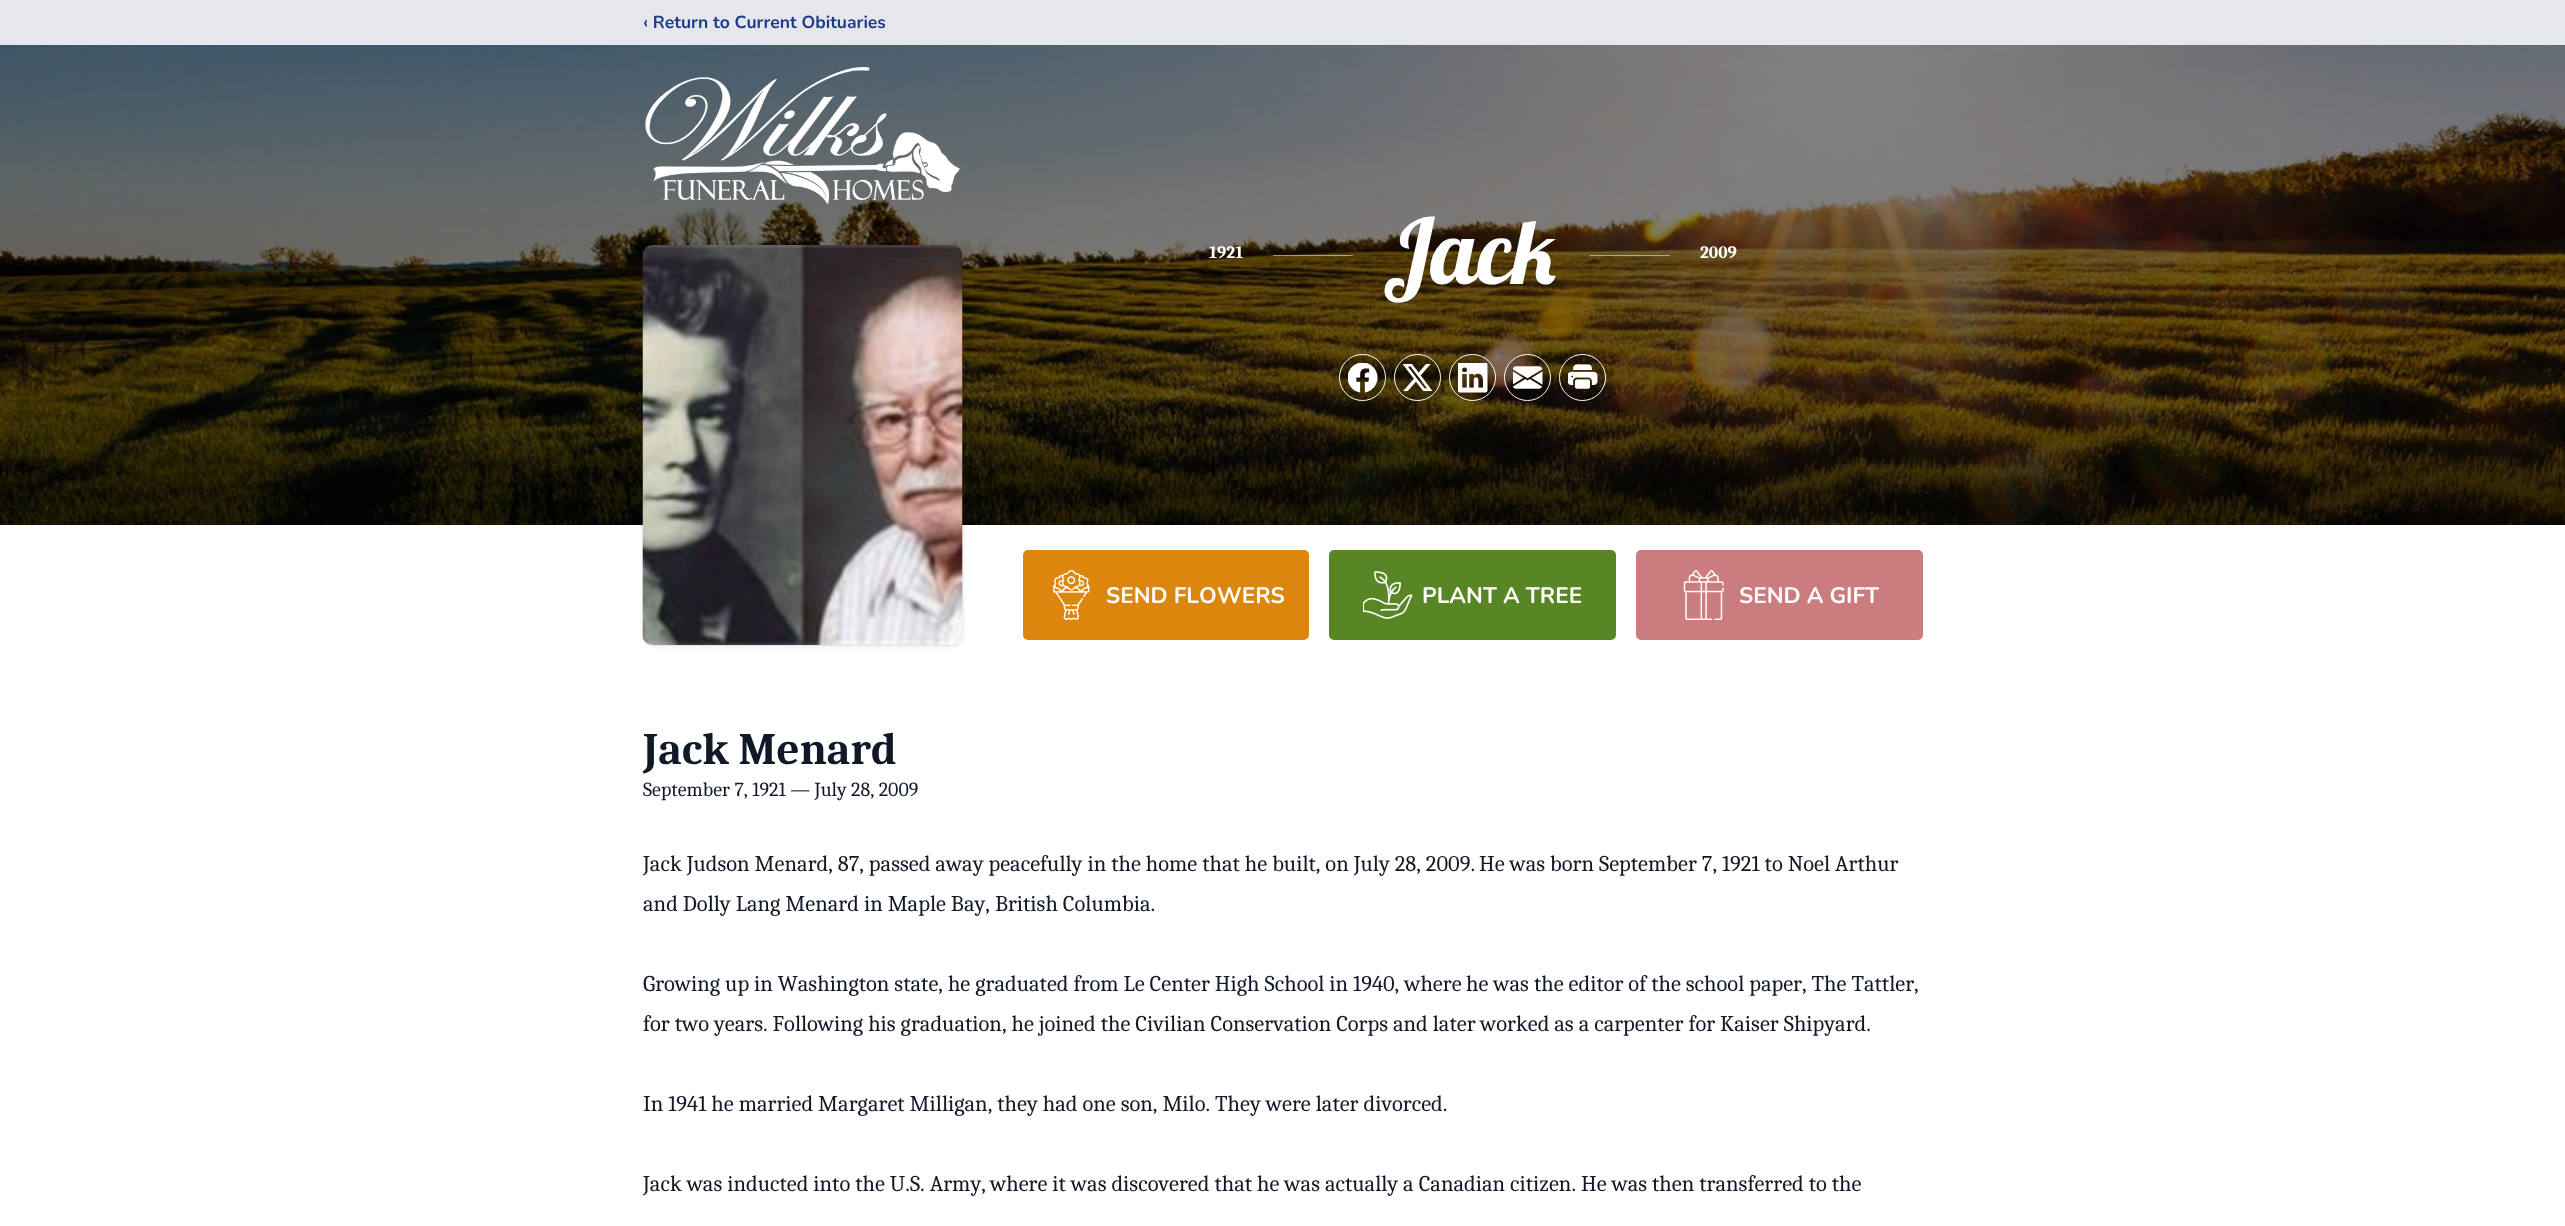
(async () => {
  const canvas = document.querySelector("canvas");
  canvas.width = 2565;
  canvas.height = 1226;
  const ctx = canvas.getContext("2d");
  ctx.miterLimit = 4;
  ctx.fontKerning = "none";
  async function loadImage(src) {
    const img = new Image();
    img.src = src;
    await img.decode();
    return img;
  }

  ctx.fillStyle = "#ffffff";
  ctx.fillRect(0, 0, 2565, 1226);
  ctx.fillStyle = "#e5e7eb";
  ctx.fillRect(0, 0, 2565, 45);
  ctx.drawImage(await loadImage("img/1.png"), 0, 45, 2565, 480);
  ctx.drawImage(await loadImage("img/2.png"), 645, 66, 315, 139);
  ctx.fillStyle = "rgba(0, 0, 0, 0.1)";
  ctx.filter = "blur(1px)";
  ctx.beginPath();
  ctx.roundRect(644, 248, 317, 397, 9);
  ctx.fill();
  ctx.filter = "none";
  ctx.filter = "blur(2px)";
  ctx.beginPath();
  ctx.roundRect(643, 246, 320, 400, 10);
  ctx.fill();
  ctx.filter = "none";
  ctx.drawImage(await loadImage("img/3.png"), 642, 245, 321, 400);
  ctx.fillStyle = "rgba(255, 255, 255, 0.5)";
  ctx.fillRect(1273, 255, 80, 1);
  ctx.fillRect(1590, 255, 80, 1);
  ctx.beginPath();
  ctx.arc(1362.5, 377.5, 23, 0, Math.PI * 2);
  ctx.strokeStyle = "#ffffff";
  ctx.stroke();
  ctx.fillStyle = "rgba(0, 0, 0, 0.2)";
  ctx.beginPath();
  ctx.arc(1362.5, 377.5, 22.5, 0, Math.PI * 2);
  ctx.fill();
  ctx.drawImage(await loadImage("img/4.png"), 1348, 363, 30, 30);
  ctx.beginPath();
  ctx.arc(1417.5, 377.5, 23, 0, Math.PI * 2);
  ctx.stroke();
  ctx.beginPath();
  ctx.arc(1417.5, 377.5, 22.5, 0, Math.PI * 2);
  ctx.fill();
  ctx.drawImage(await loadImage("img/5.png"), 1403, 363, 30, 29);
  ctx.beginPath();
  ctx.arc(1472.5, 377.5, 23, 0, Math.PI * 2);
  ctx.stroke();
  ctx.beginPath();
  ctx.arc(1472.5, 377.5, 22.5, 0, Math.PI * 2);
  ctx.fill();
  ctx.drawImage(await loadImage("img/6.png"), 1458, 363, 30, 30);
  ctx.beginPath();
  ctx.arc(1527.5, 377.5, 23, 0, Math.PI * 2);
  ctx.stroke();
  ctx.beginPath();
  ctx.arc(1527.5, 377.5, 22.5, 0, Math.PI * 2);
  ctx.fill();
  ctx.drawImage(await loadImage("img/7.png"), 1513, 366, 30, 23);
  ctx.beginPath();
  ctx.arc(1582.5, 377.5, 23, 0, Math.PI * 2);
  ctx.stroke();
  ctx.beginPath();
  ctx.arc(1582.5, 377.5, 22.5, 0, Math.PI * 2);
  ctx.fill();
  ctx.drawImage(await loadImage("img/8.png"), 1568, 364, 30, 25);
  ctx.fillStyle = "#dc860d";
  ctx.beginPath();
  ctx.roundRect(1023, 550, 286, 90, 5);
  ctx.fill();
  ctx.drawImage(await loadImage("img/9.png"), 1053, 570, 37, 50);
  ctx.fillStyle = "#588624";
  ctx.beginPath();
  ctx.roundRect(1329, 550, 287, 90, 5);
  ctx.fill();
  ctx.drawImage(await loadImage("img/10.png"), 1363, 571, 50, 48);
  ctx.fillStyle = "#cb7c7c";
  ctx.beginPath();
  ctx.roundRect(1636, 550, 287, 90, 5);
  ctx.fill();
  ctx.drawImage(await loadImage("img/11.png"), 1683, 570, 41, 50);
  ctx.font = "bold 17.5px Nunito";
  ctx.fillStyle = "#1e3a8a";
  ctx.fillText("‹ Return to Current Obituaries", 643, 28);
  ctx.font = "bold 17.5px Caladea";
  ctx.fillStyle = "#ffffff";
  ctx.fillText("1921", 1209, 258);
  ctx.font = "90px Lobster";
  ctx.fillText("Jack", 1383, 284);
  ctx.font = "bold 17.5px Caladea";
  ctx.fillText("2009", 1700, 258);
  ctx.font = "bold 22.5px Nunito";
  for (const [text, x, y] of [
    ["SEND FLOWERS", 1106, 603],
    ["PLANT A TREE", 1422, 603],
    ["SEND A GIFT", 1739, 603],
  ]) {
    ctx.fillText(text, x, y);
  }
  ctx.font = "bold 45px Caladea";
  ctx.fillStyle = "#111827";
  ctx.fillText("Jack Menard", 643, 764);
  ctx.font = "20px Caladea";
  ctx.fillText("September 7, 1921 — July 28, 2009", 643, 796);
  ctx.font = "22.5px Caladea";
  for (const [text, x, y] of [
    ["Jack Judson Menard, 87, passed away peacefully in the home that he built, on July 28, 2009.", 643, 871],
    ["He was born September 7, 1921 to Noel Arthur", 1479, 871],
    ["and Dolly Lang Menard in Maple Bay, British Columbia.", 643, 911],
    ["Growing up in Washington state, he graduated from Le Center High School in 1940, where", 643, 991],
    ["he was the editor of the school paper, The Tattler,", 1466, 991],
    ["for two years. Following his graduation, he joined the Civilian Conservation Corps and later", 643, 1031],
    ["worked as a carpenter for Kaiser Shipyard.", 1480, 1031],
    ["In 1941 he married Margaret Milligan, they had one son, Milo. They were later divorced.", 643, 1111],
    ["Jack was inducted into the U.S. Army,", 643, 1191],
    ["where it was discovered that he was actually a Canadian citizen. He was", 990, 1191],
    ["then transferred to the", 1652, 1191],
  ]) {
    ctx.fillText(text, x, y);
  }
})();
